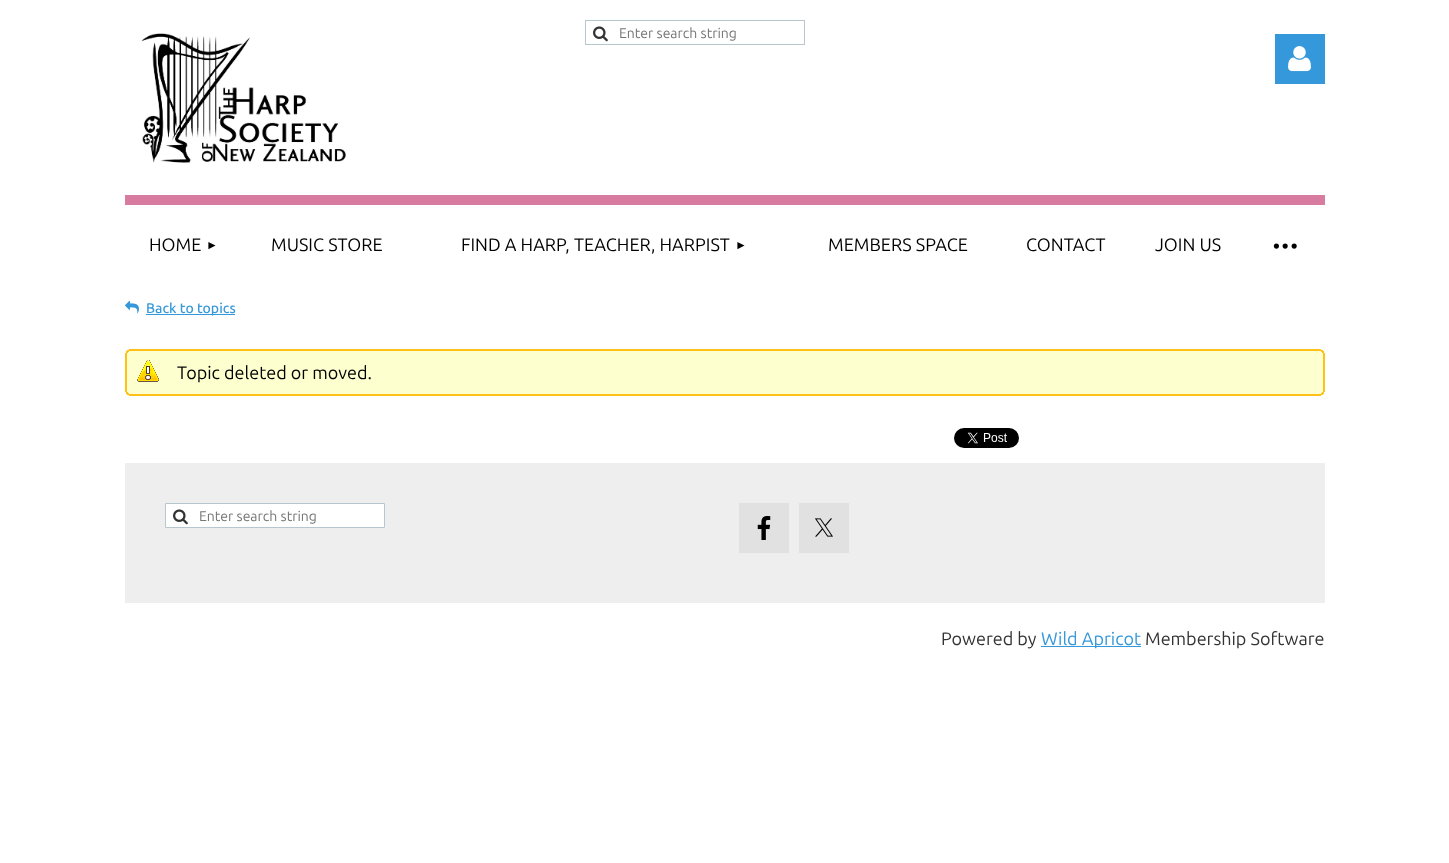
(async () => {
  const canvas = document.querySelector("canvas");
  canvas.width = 1449;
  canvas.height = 863;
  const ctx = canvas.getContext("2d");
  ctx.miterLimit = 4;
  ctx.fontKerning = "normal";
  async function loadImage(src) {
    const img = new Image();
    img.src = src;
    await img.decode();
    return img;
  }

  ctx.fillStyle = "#ffffff";
  ctx.fillRect(0, 0, 1449, 863);
  ctx.drawImage(await loadImage("img/1.png"), 141, 33, 205, 131);
  ctx.strokeStyle = "#b8c6cd";
  ctx.strokeRect(585.5, 20.5, 219, 24);
  ctx.drawImage(await loadImage("img/2.png"), 593, 26, 15, 16);
  ctx.fillStyle = "#3498db";
  ctx.fillRect(1275, 34, 50, 50);
  ctx.drawImage(await loadImage("img/3.png"), 1288, 46, 23, 26);
  ctx.fillStyle = "#d77ba0";
  ctx.fillRect(125, 195, 1200, 10);
  ctx.drawImage(await loadImage("img/4.png"), 125, 300, 14, 14);
  for (const [x, y, w, h, color] of [
    [146, 314, 89, 1, "#3498db"],
    [129, 349, 1192, 1, "#ffc017"],
    [127, 350, 1196, 1, "#ffc017"],
    [126, 351, 1198, 2, "#fdffce"],
    [1321, 351, 3, 1, "#ffc017"],
    [126, 351, 3, 1, "#ffc017"],
    [1322, 352, 2, 1, "#ffc017"],
    [126, 352, 2, 1, "#ffc017"],
    [127, 353, 1196, 39, "#fdffce"],
  ]) {
    ctx.fillStyle = color;
    ctx.fillRect(x, y, w, h);
  }
  ctx.drawImage(await loadImage("img/5.png"), 137, 360, 22, 22);
  for (const [x, y, w, h, color] of [
    [1323, 353, 2, 39, "#ffc017"],
    [125, 353, 2, 39, "#ffc017"],
    [126, 392, 1198, 2, "#fdffce"],
    [1322, 392, 2, 1, "#ffc017"],
    [126, 392, 2, 1, "#ffc017"],
    [1321, 393, 3, 1, "#ffc017"],
    [126, 393, 3, 1, "#ffc017"],
    [127, 394, 1196, 1, "#ffc017"],
    [129, 395, 1192, 1, "#ffc017"],
  ]) {
    ctx.fillStyle = color;
    ctx.fillRect(x, y, w, h);
  }
  ctx.drawImage(await loadImage("img/6.png"), 954, 428, 65, 20);
  ctx.fillStyle = "#eeeeee";
  ctx.fillRect(125, 463, 1200, 140);
  ctx.fillStyle = "#ffffff";
  ctx.beginPath();
  ctx.rect(165.5, 503.5, 219, 24);
  ctx.fill();
  ctx.stroke();
  ctx.drawImage(await loadImage("img/2.png"), 173, 509, 15, 16);
  ctx.fillStyle = "#e1e1e1";
  ctx.fillRect(739, 503, 50, 50);
  ctx.drawImage(await loadImage("img/7.png"), 757, 516, 14, 24);
  ctx.fillRect(799, 503, 50, 50);
  ctx.drawImage(await loadImage("img/8.png"), 815, 518, 18, 19);
  ctx.fillStyle = "#3498db";
  ctx.fillRect(1041, 646, 100, 1);
  ctx.font = "14px Ubuntu";
  ctx.fillStyle = "#757575";
  ctx.fillText("Enter search string", 619, 38);
  ctx.font = "18px Ubuntu";
  ctx.fillStyle = "#000000";
  ctx.fillText("HOME", 149, 251);
  ctx.font = "12px Liberation Sans";
  ctx.fillText("►", 206, 249);
  ctx.font = "18px Ubuntu";
  ctx.fillText("MUSIC STORE", 271, 251);
  ctx.fillText("FIND A HARP, TEACHER, HARPIST", 461, 251);
  ctx.font = "12px Liberation Sans";
  ctx.fillText("►", 735, 249);
  ctx.font = "18px Ubuntu";
  for (const [text, x, y] of [
    ["MEMBERS SPACE", 828, 251],
    ["CONTACT", 1026, 251],
    ["JOIN US", 1155, 251],
  ]) {
    ctx.fillText(text, x, y);
  }
  ctx.letterSpacing = "-2px";
  ctx.font = "44px Ubuntu";
  ctx.fillText("···", 1271, 259);
  ctx.letterSpacing = "0px";
  ctx.font = "500 14px Ubuntu";
  ctx.fillStyle = "#3498db";
  ctx.fillText("Back to topics", 146, 313);
  ctx.font = "18px Ubuntu";
  ctx.fillStyle = "#000000";
  ctx.fillText("Topic deleted or moved.", 177, 379);
  ctx.font = "14px Ubuntu";
  ctx.fillStyle = "#757575";
  ctx.fillText("Enter search string", 199, 521);
  ctx.font = "18px Ubuntu";
  ctx.fillStyle = "#333333";
  ctx.fillText("Powered by", 941, 645);
  ctx.fillStyle = "#3498db";
  ctx.fillText("Wild Apricot", 1041, 645);
  ctx.fillStyle = "#333333";
  ctx.fillText("Membership Software", 1145, 645);
})();
